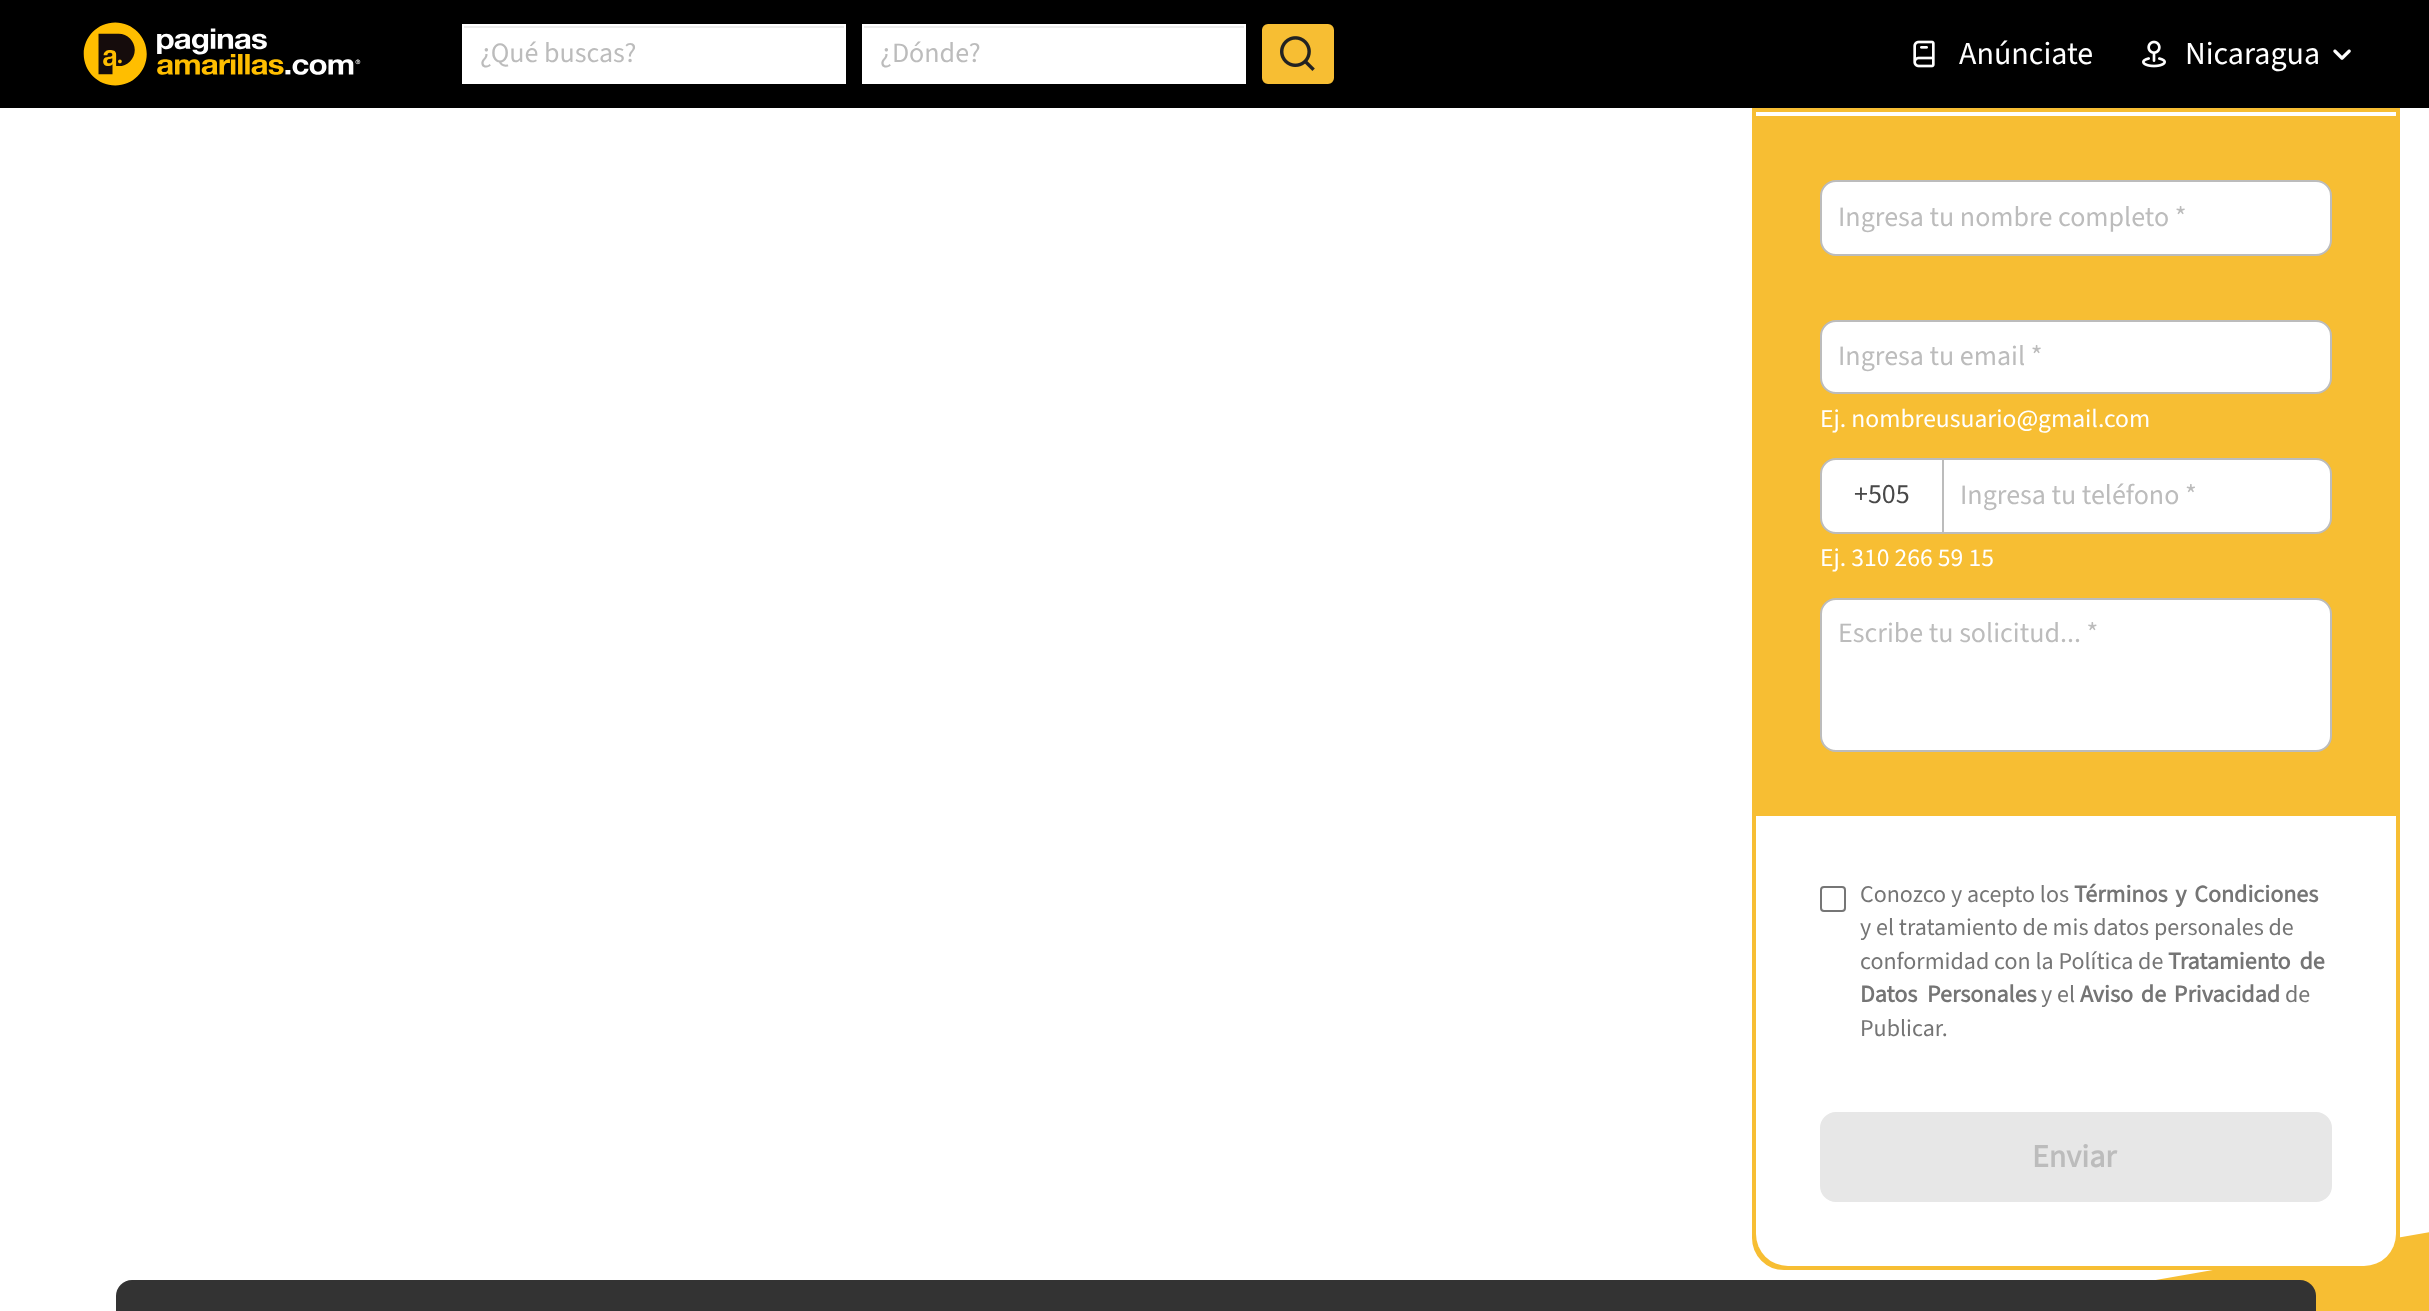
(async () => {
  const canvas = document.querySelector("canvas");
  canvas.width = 2429;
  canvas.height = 1311;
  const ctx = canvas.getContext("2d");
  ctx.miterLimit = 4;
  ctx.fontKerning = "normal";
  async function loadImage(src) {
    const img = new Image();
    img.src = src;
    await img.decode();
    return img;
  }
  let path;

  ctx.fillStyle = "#ffffff";
  ctx.fillRect(0, 0, 2429, 1311);
  ctx.fillStyle = "#f7be33";
  ctx.fillRect(2155, 1232, 274, 79);
  ctx.fillStyle = "#ffffff";
  path = new Path2D("M0 1146V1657L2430 1232V1146Z");
  ctx.fill(path);
  ctx.fillStyle = "#f7be33";
  ctx.beginPath();
  ctx.roundRect(1754, -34, 644, 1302, 30);
  ctx.fill();
  ctx.strokeStyle = "#f7be33";
  ctx.lineWidth = 4;
  ctx.stroke();
  ctx.fillStyle = "#000000";
  ctx.fillRect(0, 0, 2429, 108);
  ctx.drawImage(await loadImage("img/1.png"), 83, 22, 278, 64);
  ctx.fillStyle = "#ffffff";
  ctx.fillRect(464, 28, 380, 54);
  ctx.fillStyle = "#ececec";
  ctx.fillRect(464, 26, 380, 2);
  ctx.strokeStyle = "#ffffff";
  ctx.lineWidth = 2;
  ctx.strokeRect(463, 25, 382, 58);
  ctx.fillStyle = "#ffffff";
  ctx.fillRect(864, 28, 380, 54);
  ctx.fillStyle = "#ececec";
  ctx.fillRect(864, 26, 380, 2);
  ctx.strokeRect(863, 25, 382, 58);
  ctx.fillStyle = "#f7be33";
  ctx.beginPath();
  ctx.roundRect(1263, 25, 70, 58, 5);
  ctx.fill();
  ctx.strokeStyle = "#f7be33";
  ctx.stroke();
  ctx.drawImage(await loadImage("img/2.png"), 1280, 36, 35, 35);
  ctx.drawImage(await loadImage("img/3.png"), 1913, 40, 22, 28);
  ctx.drawImage(await loadImage("img/4.png"), 2142, 40, 24, 28);
  ctx.drawImage(await loadImage("img/5.png"), 2333, 49, 18, 11);
  ctx.fillStyle = "#ffffff";
  ctx.fillRect(1756, 112, 640, 4);
  ctx.beginPath();
  ctx.roundRect(1821, 181, 510, 74, 15);
  ctx.fill();
  ctx.strokeStyle = "#bcbcbc";
  ctx.stroke();
  ctx.beginPath();
  ctx.roundRect(1821, 321, 510, 72, 15);
  ctx.fill();
  ctx.stroke();
  ctx.beginPath();
  ctx.roundRect(1821, 459, 122, 74, [15, 0, 0, 15]);
  ctx.fill();
  ctx.stroke();
  ctx.beginPath();
  ctx.roundRect(1943, 459, 388, 74, [0, 15, 15, 0]);
  ctx.fill();
  ctx.stroke();
  ctx.beginPath();
  ctx.roundRect(1821, 599, 510, 152, 15);
  ctx.fill();
  ctx.stroke();
  ctx.beginPath();
  ctx.roundRect(1756, 816, 640, 450, [0, 0, 32, 32]);
  ctx.fill();
  ctx.beginPath();
  ctx.roundRect(1821, 887, 24, 24, 3);
  ctx.strokeStyle = "#767676";
  ctx.stroke();
  ctx.fillStyle = "#e7e7e7";
  ctx.beginPath();
  ctx.roundRect(1821, 1113, 510, 88, 15);
  ctx.fill();
  ctx.strokeStyle = "#e7e7e7";
  ctx.stroke();
  ctx.fillStyle = "#333333";
  ctx.beginPath();
  ctx.roundRect(116, 1280, 2200, 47, 16);
  ctx.fill();
  ctx.font = "28px 'Source Sans 3'";
  ctx.fillStyle = "#bcbcbc";
  ctx.fillText("¿Qué buscas?", 480, 62);
  ctx.fillText("¿Dónde?", 880, 62);
  ctx.font = "32px 'Source Sans 3'";
  ctx.fillStyle = "#ffffff";
  ctx.fillText("Anúnciate", 1959, 64);
  ctx.fillText("Nicaragua", 2185, 64);
  ctx.font = "28px 'Source Sans 3'";
  ctx.fillStyle = "#bcbcbc";
  ctx.fillText("Ingresa tu nombre completo *", 1838, 226);
  ctx.fillText("Ingresa tu email *", 1838, 365);
  ctx.font = "25.6px 'Source Sans 3'";
  ctx.fillStyle = "#ffffff";
  ctx.fillText("Ej. nombreusuario@gmail.com", 1820, 427);
  ctx.font = "28px 'Source Sans 3'";
  ctx.fillStyle = "#484848";
  ctx.fillText("+505", 1854, 503);
  ctx.fillStyle = "#bcbcbc";
  ctx.fillText("Ingresa tu teléfono *", 1960, 504);
  ctx.font = "25.6px 'Source Sans 3'";
  ctx.fillStyle = "#ffffff";
  ctx.fillText("Ej. 310 266 59 15", 1820, 566);
  ctx.font = "28px 'Source Sans 3'";
  ctx.fillStyle = "#bcbcbc";
  ctx.fillText("Escribe tu solicitud... *", 1838, 642);
  ctx.font = "24px 'Source Sans 3'";
  ctx.fillStyle = "#757575";
  ctx.fillText("Conozco y acepto los", 1860, 902);
  ctx.wordSpacing = "3px";
  ctx.font = "bold 24px 'Source Sans 3'";
  ctx.fillText("Términos y Condiciones", 2074, 902);
  ctx.wordSpacing = "0px";
  ctx.font = "24px 'Source Sans 3'";
  ctx.fillText("y el tratamiento de mis datos personales de", 1860, 935);
  ctx.fillText("conformidad con la Política de", 1860, 969);
  ctx.wordSpacing = "4px";
  ctx.font = "bold 24px 'Source Sans 3'";
  ctx.fillText("Tratamiento de", 2168, 969);
  ctx.wordSpacing = "5px";
  ctx.fillText("Datos Personales", 1860, 1002);
  ctx.wordSpacing = "0px";
  ctx.font = "24px 'Source Sans 3'";
  ctx.fillText("y el", 2041, 1002);
  ctx.wordSpacing = "3px";
  ctx.font = "bold 24px 'Source Sans 3'";
  ctx.fillText("Aviso de Privacidad", 2080, 1002);
  ctx.wordSpacing = "0px";
  ctx.font = "24px 'Source Sans 3'";
  ctx.fillText("de", 2285, 1002);
  ctx.fillText("Publicar.", 1860, 1036);
  ctx.font = "bold 32px 'Source Sans 3'";
  ctx.fillStyle = "#bcbcbc";
  ctx.fillText("Enviar", 2032, 1167);
})();
